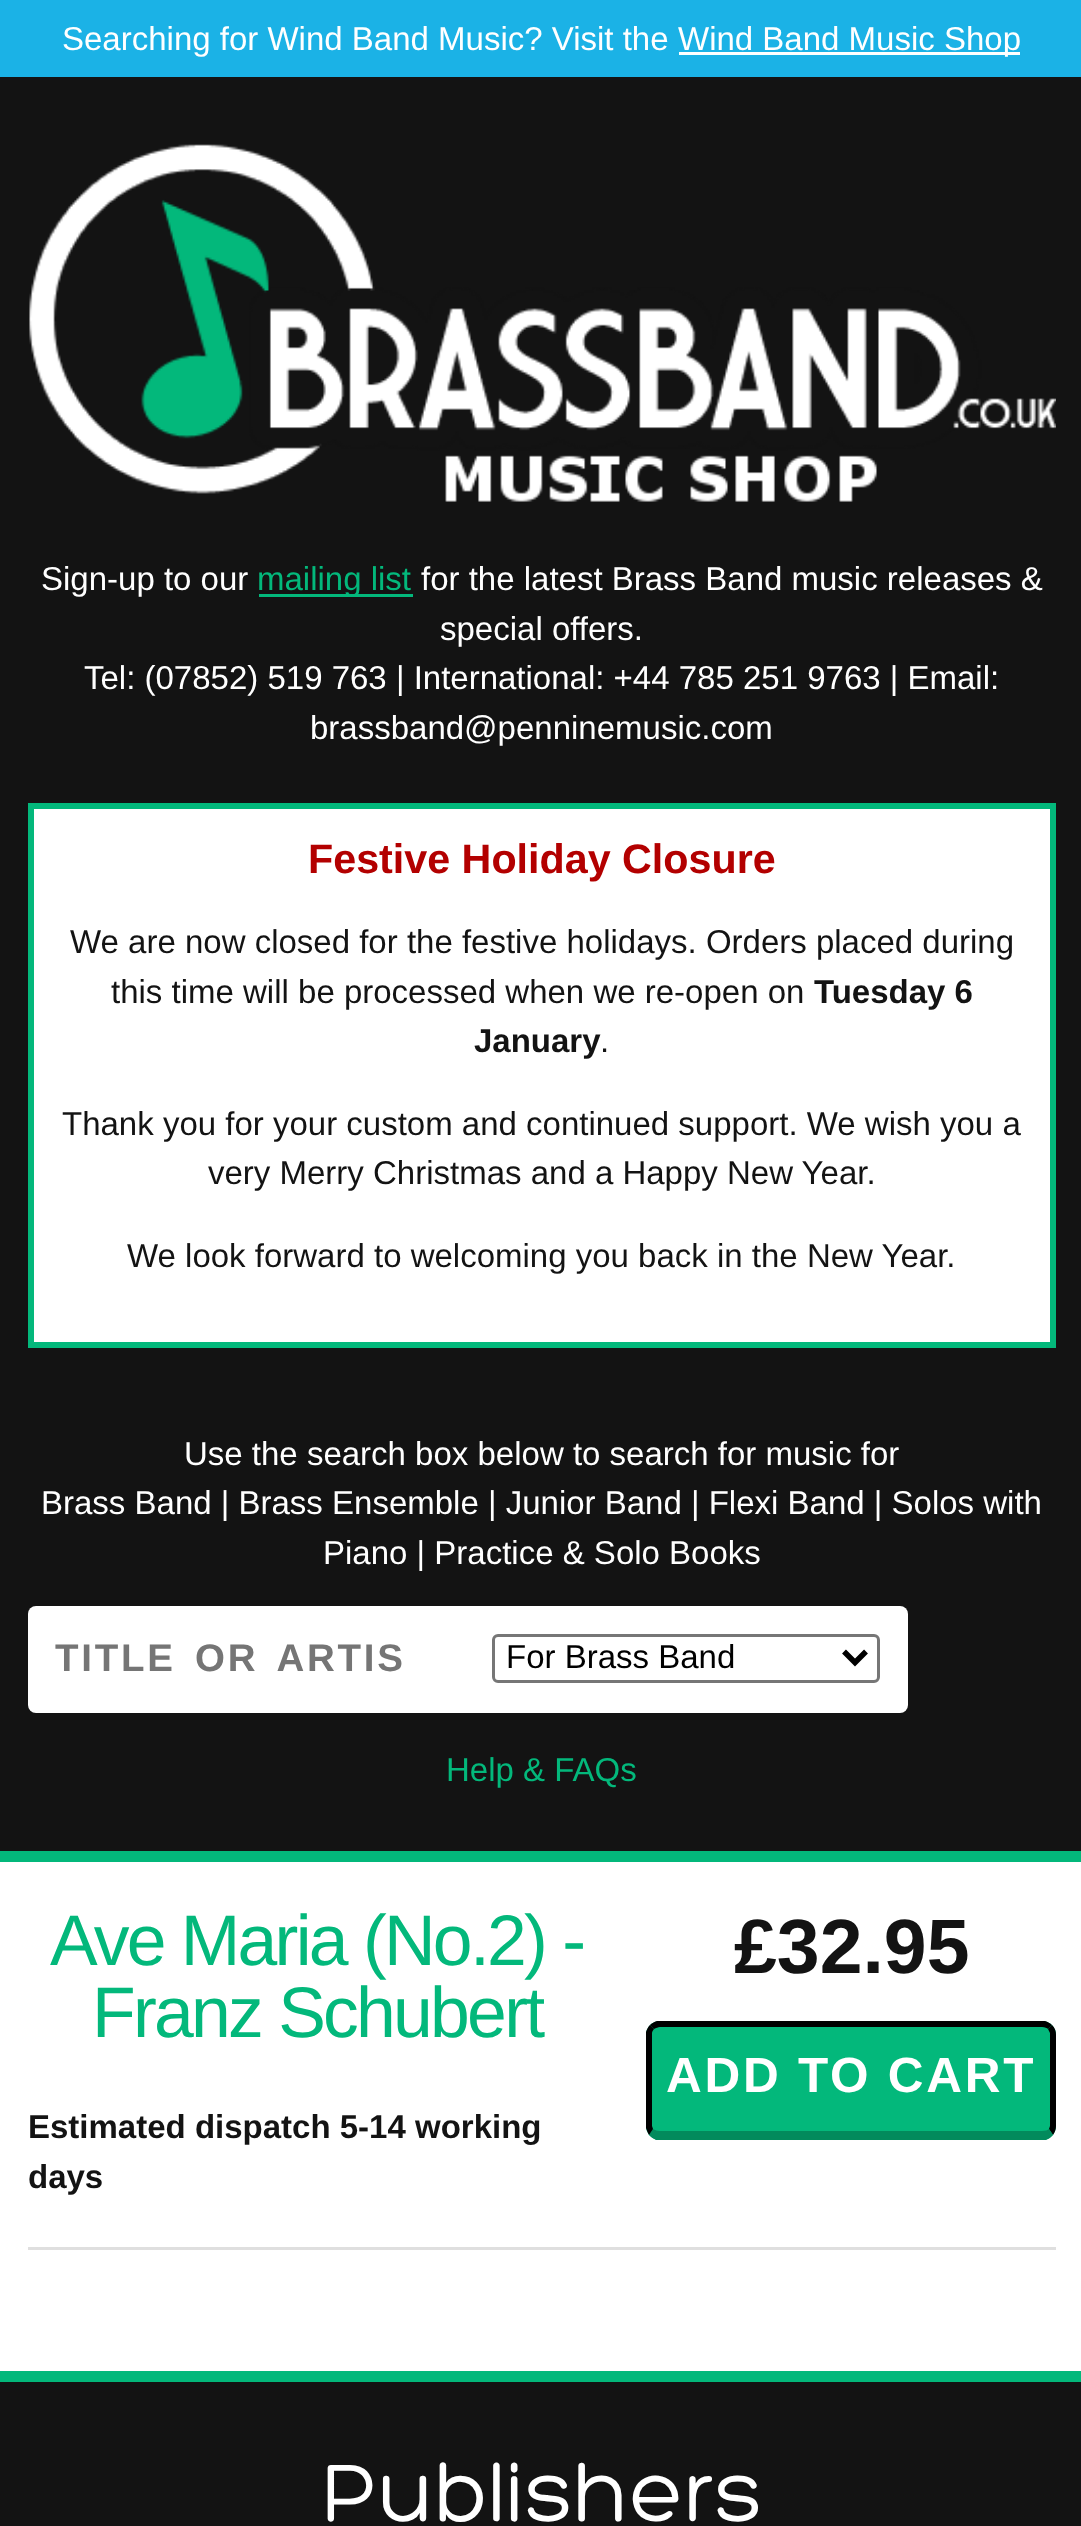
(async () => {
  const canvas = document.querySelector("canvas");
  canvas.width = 1081;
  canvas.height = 2526;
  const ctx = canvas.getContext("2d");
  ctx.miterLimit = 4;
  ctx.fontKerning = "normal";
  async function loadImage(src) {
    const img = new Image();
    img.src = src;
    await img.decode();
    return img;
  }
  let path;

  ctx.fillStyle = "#ffffff";
  ctx.fillRect(0, 0, 1081, 2526);
  for (const [x, y, w, h, color] of [
    [0, 0, 1081, 77, "#1bb2e6"],
    [679, 52, 341, 3, "#ffffff"],
    [0, 77, 1081, 1774, "#131313"],
    [0, 1851, 1081, 11, "#03b87b"],
  ]) {
    ctx.fillStyle = color;
    ctx.fillRect(x, y, w, h);
  }
  ctx.drawImage(await loadImage("img/1.png"), 29, 144, 1027, 358);
  ctx.fillRect(259, 594, 154, 3);
  ctx.fillStyle = "#ffffff";
  ctx.beginPath();
  ctx.rect(31, 806, 1022, 539);
  ctx.fill();
  ctx.strokeStyle = "#03b87b";
  ctx.lineWidth = 6;
  ctx.stroke();
  ctx.beginPath();
  ctx.roundRect(28, 1606, 880, 107, 8);
  ctx.fill();
  ctx.beginPath();
  ctx.roundRect(493.5, 1635.5, 385, 46, 4.5);
  ctx.strokeStyle = "#767676";
  ctx.lineWidth = 3;
  ctx.stroke();
  path = new Path2D("M844 1651.5L855 1662.5L866 1651.5");
  ctx.strokeStyle = "#000000";
  ctx.lineWidth = 5.5;
  ctx.stroke(path);
  ctx.fillStyle = "#dfdfdf";
  ctx.fillRect(28, 2247, 1028, 3);
  ctx.fillStyle = "#03b87b";
  ctx.beginPath();
  ctx.roundRect(646, 2021, 410, 119, 14);
  ctx.fill();
  ctx.fillStyle = "#000000";
  path = new Path2D("M660 2027C658 2027 656 2028 654 2029L650 2025C652 2023 654 2022 657 2021H1045C1048 2022 1050 2023 1052 2025L1048 2029C1047 2028 1045 2027 1042 2027Z");
  ctx.fill(path);
  path = new Path2D("M1056 2126V2035C1056 2031 1055 2028 1052 2025L1048 2029L1050 2033V2126L1049 2129L1053 2135C1055 2132 1056 2129 1056 2126Z");
  ctx.fill(path);
  ctx.fillStyle = "#028a5c";
  path = new Path2D("M656 2140C654 2139 651 2137 649 2135L653 2129C655 2130 657 2131 660 2131H1042C1045 2131 1048 2130 1049 2129L1053 2135C1051 2137 1049 2139 1046 2140Z");
  ctx.fill(path);
  ctx.fillStyle = "#000000";
  path = new Path2D("M646 2032C647 2029 648 2027 650 2025L654 2029C653 2030 652 2032 652 2033V2126L653 2129L649 2135C648 2133 647 2131 646 2128Z");
  ctx.fill(path);
  ctx.fillStyle = "#131313";
  ctx.fillRect(0, 2382, 1081, 144);
  ctx.fillStyle = "#03b87b";
  ctx.fillRect(0, 2371, 1081, 11);
  ctx.font = "33px Liberation Sans";
  ctx.fillStyle = "#ffffff";
  for (const [text, x, y] of [
    ["Searching for Wind Band Music? Visit the", 62, 50],
    ["Wind Band Music Shop", 678, 50],
    ["Sign-up to our", 41, 590],
  ]) {
    ctx.fillText(text, x, y);
  }
  ctx.fillStyle = "#03b87b";
  ctx.fillText("mailing list", 257, 590);
  ctx.fillStyle = "#ffffff";
  for (const [text, x, y] of [
    ["for the latest Brass Band music releases &", 421, 590],
    ["special offers.", 440, 640],
    ["Tel: (07852) 519 763 | International: +44 785 251 9763 | Email:", 84, 689],
    ["brassband@penninemusic.com", 310, 739],
  ]) {
    ctx.fillText(text, x, y);
  }
  ctx.font = "bold 41.25px Liberation Sans";
  ctx.fillStyle = "#b30000";
  ctx.fillText("Festive Holiday Closure", 308, 873);
  ctx.font = "33px Liberation Sans";
  ctx.fillStyle = "#131313";
  ctx.fillText("We are now closed for the festive holidays. Orders placed during", 70, 953);
  ctx.fillText("this time will be processed when we re-open on", 111, 1003);
  ctx.font = "bold 33px Liberation Sans";
  ctx.fillText("Tuesday 6", 814, 1003);
  ctx.fillText("January", 474, 1052);
  ctx.font = "33px Liberation Sans";
  for (const [text, x, y] of [
    [".", 600, 1052],
    ["Thank you for your custom and continued support. We wish you a", 62, 1135],
    ["very Merry Christmas and a Happy New Year.", 208, 1184],
    ["We look forward to welcoming you back in the New Year.", 127, 1267],
  ]) {
    ctx.fillText(text, x, y);
  }
  ctx.fillStyle = "#ffffff";
  for (const [text, x, y] of [
    ["Use the search box below to search for music for", 184, 1465],
    ["Brass Band | Brass Ensemble | Junior Band | Flexi Band | Solos with", 41, 1514],
    ["Piano | Practice & Solo Books", 323, 1564],
  ]) {
    ctx.fillText(text, x, y);
  }
  ctx.letterSpacing = "2.75px";
  ctx.wordSpacing = "6px";
  ctx.font = "bold 38.5px Liberation Sans";
  ctx.fillStyle = "#757575";
  ctx.fillText("TITLE OR ARTIS", 55, 1671);
  ctx.letterSpacing = "0px";
  ctx.wordSpacing = "0px";
  ctx.font = "33px Liberation Sans";
  ctx.fillStyle = "#000000";
  ctx.fillText("For Brass Band", 506, 1668);
  ctx.fillStyle = "#03b87b";
  ctx.fillText("Help & FAQs", 446, 1781);
  ctx.letterSpacing = "-2.75px";
  ctx.font = "71.5px Liberation Sans";
  ctx.fillText("Ave Maria (No.2) -", 50, 1965);
  ctx.fillText("Franz Schubert", 92, 2037);
  ctx.letterSpacing = "0px";
  ctx.font = "bold 33px Liberation Sans";
  ctx.fillStyle = "#131313";
  ctx.fillText("Estimated dispatch 5-14 working", 28, 2138);
  ctx.fillText("days", 28, 2188);
  ctx.font = "bold 77px Liberation Sans";
  ctx.fillText("£32.95", 734, 1973);
  ctx.letterSpacing = "2.75px";
  ctx.font = "bold 49.5px Liberation Sans";
  ctx.fillStyle = "#ffffff";
  ctx.fillText("ADD TO CART", 666, 2092);
  ctx.letterSpacing = "0px";
  ctx.font = "88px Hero";
  ctx.fillText("Publishers", 321, 2521);
})();
